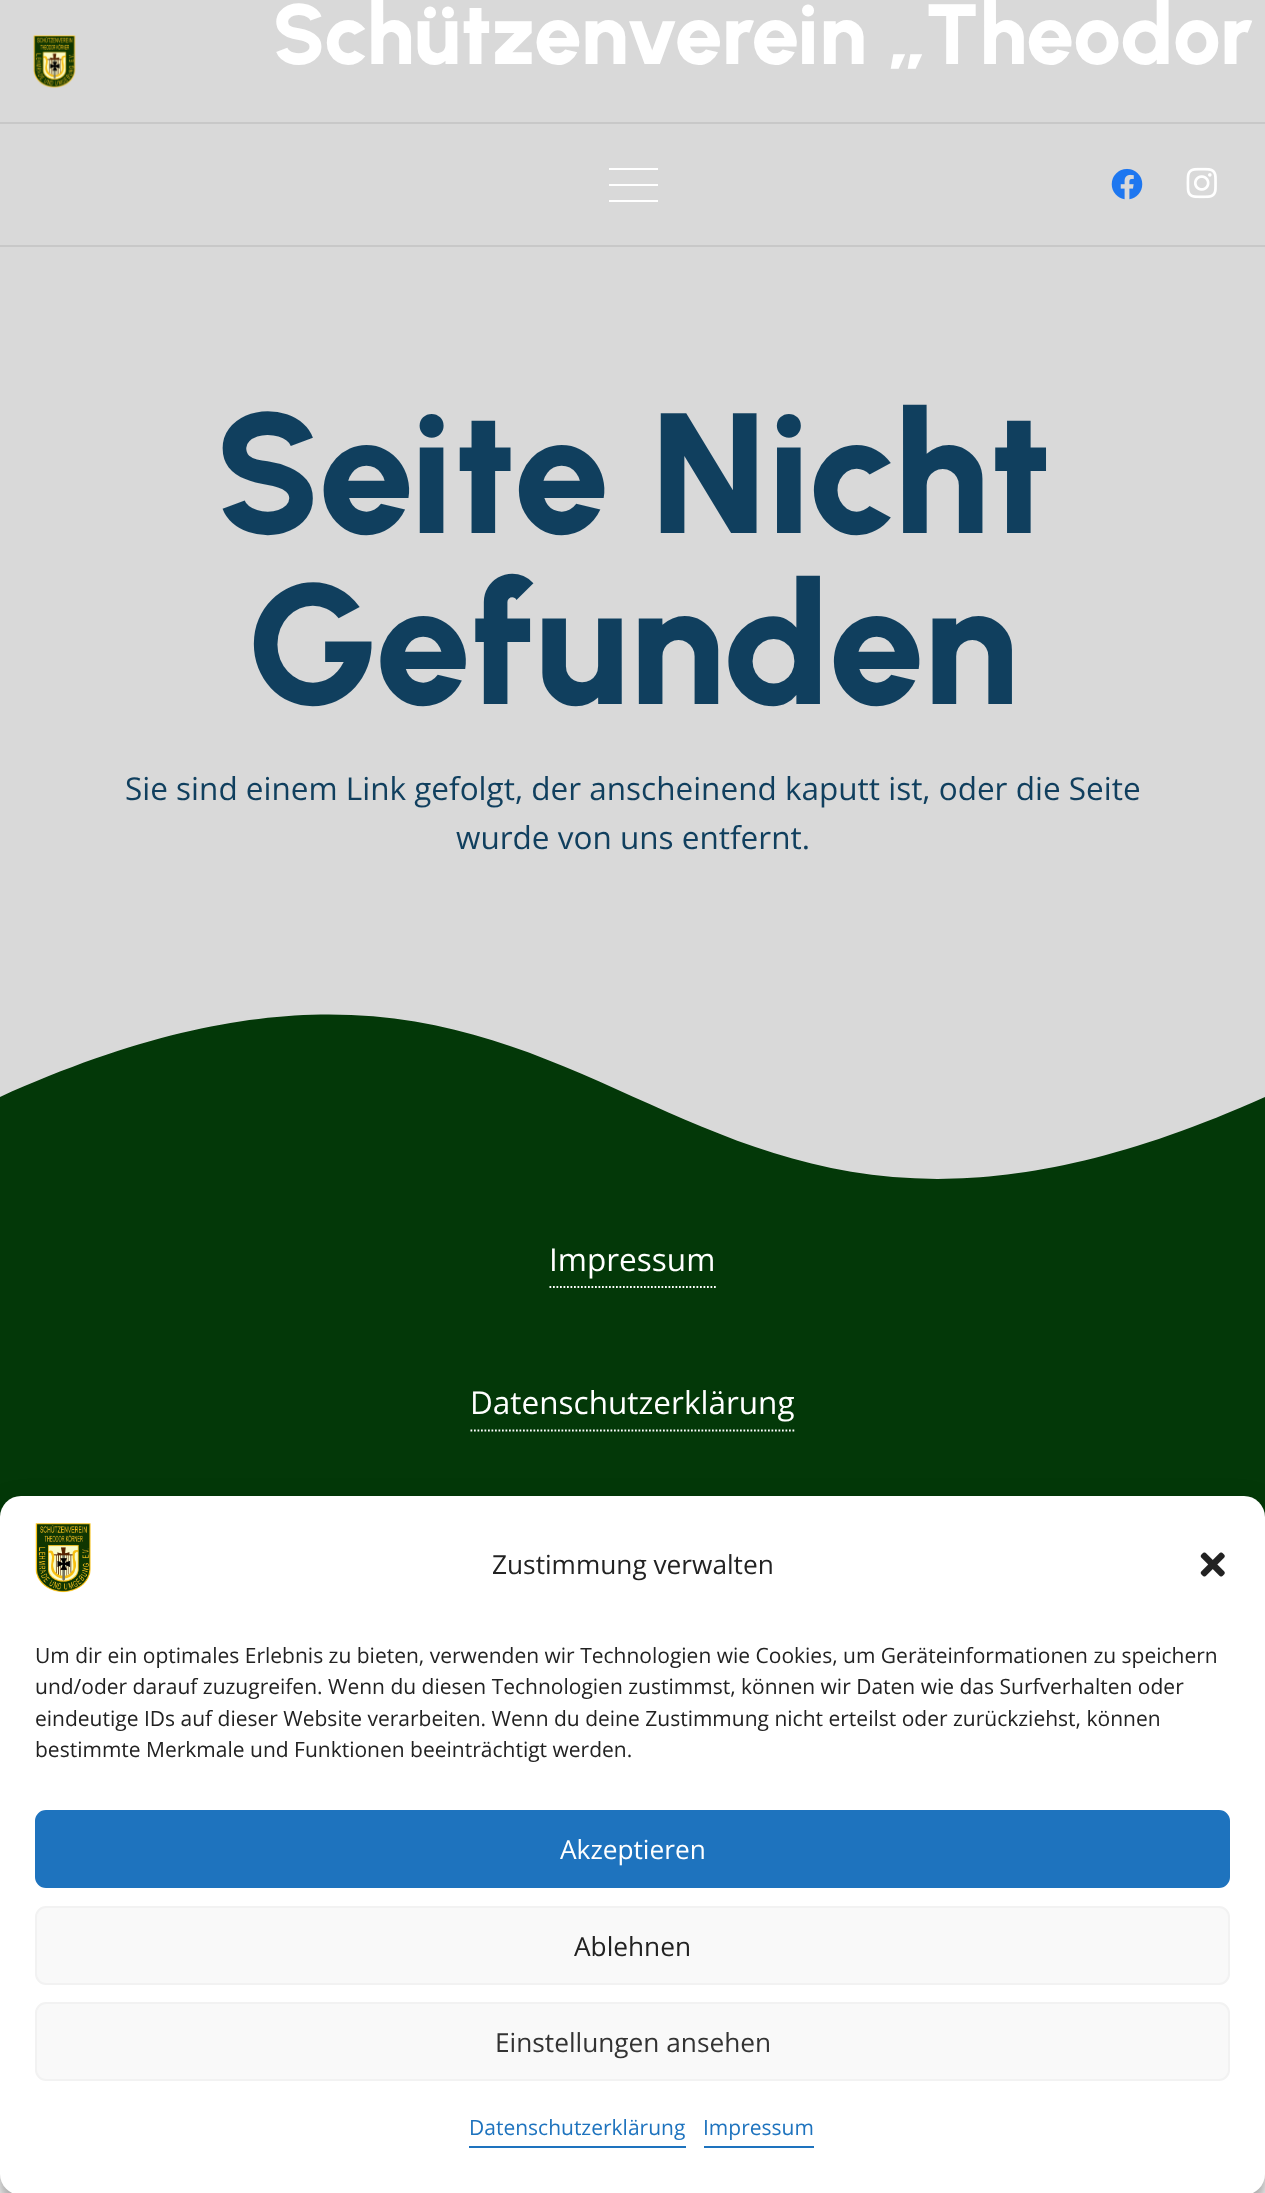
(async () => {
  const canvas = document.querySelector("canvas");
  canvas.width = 1265;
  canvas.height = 2193;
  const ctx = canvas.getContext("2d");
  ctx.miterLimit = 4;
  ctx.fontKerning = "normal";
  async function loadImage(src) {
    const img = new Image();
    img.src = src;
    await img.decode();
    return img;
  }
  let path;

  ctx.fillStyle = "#ffffff";
  ctx.fillRect(0, 0, 1265, 2193);
  ctx.fillStyle = "#d9d9d9";
  ctx.fillRect(0, 0, 1265, 1005);
  ctx.fillStyle = "#c8c8c8";
  ctx.fillRect(0, 122, 1265, 2);
  ctx.drawImage(await loadImage("img/1.png"), 33, 35, 43, 53);
  for (const [x, y, w, h, color] of [
    [0, 245, 1265, 2, "#c8c8c8"],
    [609, 184, 49, 2, "#ffffff"],
    [609, 168, 49, 2, "#ffffff"],
    [609, 200, 49, 2, "#ffffff"],
  ]) {
    ctx.fillStyle = color;
    ctx.fillRect(x, y, w, h);
  }
  ctx.drawImage(await loadImage("img/2.png"), 1111, 168, 32, 32);
  ctx.drawImage(await loadImage("img/3.png"), 1186, 167, 31, 32);
  ctx.fillStyle = "#033808";
  ctx.fillRect(0, 1014, 1265, 503);
  ctx.save();
  ctx.beginPath();
  ctx.rect(0, 1005, 1265, 187);
  ctx.clip();
  ctx.fillStyle = "#d9d9d9";
  path = new Path2D("M1265 1097C633 1381 633 812 0 1097V1002H1265Z");
  ctx.fill(path);
  ctx.restore();
  path = new Path2D("M549.5 1287H716");
  ctx.strokeStyle = "#ffffff";
  ctx.lineWidth = 1.8;
  ctx.setLineDash([1.75, 1.75]);
  ctx.stroke(path);
  path = new Path2D("M470.5 1430.5H795");
  ctx.stroke(path);
  ctx.fillStyle = "rgba(0, 0, 0, 0.23)";
  ctx.filter = "blur(5px)";
  ctx.beginPath();
  ctx.roundRect(0, 1507, 1265, 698, 21);
  ctx.fill();
  ctx.filter = "none";
  ctx.fillStyle = "rgba(0, 0, 0, 0.19)";
  ctx.filter = "blur(17.5px)";
  ctx.beginPath();
  ctx.roundRect(0, 1514, 1265, 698, 21);
  ctx.fill();
  ctx.filter = "none";
  ctx.fillStyle = "#ffffff";
  ctx.beginPath();
  ctx.roundRect(0, 1496, 1265, 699, 21);
  ctx.fill();
  ctx.drawImage(await loadImage("img/4.png"), 35, 1523, 56, 70);
  ctx.drawImage(await loadImage("img/5.png"), 1200, 1552, 25, 25);
  ctx.fillStyle = "#1e73be";
  ctx.beginPath();
  ctx.roundRect(36, 1811, 1193, 76, 10);
  ctx.fill();
  ctx.strokeStyle = "#1e73be";
  ctx.lineWidth = 2;
  ctx.setLineDash([]);
  ctx.stroke();
  ctx.fillStyle = "#f9f9f9";
  ctx.beginPath();
  ctx.roundRect(36, 1907, 1193, 77, 10);
  ctx.fill();
  ctx.strokeStyle = "#f2f2f2";
  ctx.stroke();
  ctx.beginPath();
  ctx.roundRect(36, 2003, 1193, 77, 10);
  ctx.fill();
  ctx.stroke();
  ctx.fillStyle = "#1e73be";
  ctx.fillRect(469, 2146, 217, 2);
  ctx.fillRect(704, 2146, 110, 2);
  ctx.font = "800 85.4px Urbanist";
  ctx.fillStyle = "#ffffff";
  ctx.fillText("Schützenverein „Theodor", 272, 64);
  ctx.font = "800 171px Urbanist";
  ctx.fillStyle = "#103f5e";
  ctx.fillText("Seite Nicht", 214, 533);
  ctx.fillText("Gefunden", 247, 704);
  ctx.font = "31.5px Open Sans";
  ctx.fillText("Sie sind einem Link gefolgt, der anscheinend kaputt ist, oder die Seite", 125, 800);
  ctx.fillText("wurde von uns entfernt.", 456, 849);
  ctx.fillStyle = "#ffffff";
  ctx.fillText("Impressum", 549, 1271);
  ctx.fillText("Datenschutzerklärung", 470, 1414);
  ctx.font = "26.25px Open Sans";
  ctx.fillStyle = "#222222";
  ctx.fillText("Zustimmung verwalten", 492, 1574);
  ctx.font = "21px Open Sans";
  for (const [text, x, y] of [
    ["Um dir ein optimales Erlebnis zu bieten, verwenden wir Technologien wie Cookies, um Geräteinformationen zu speichern", 35, 1663],
    ["und/oder darauf zuzugreifen. Wenn du diesen Technologien zustimmst, können wir Daten wie das Surfverhalten oder", 35, 1694],
    ["eindeutige IDs auf dieser Website verarbeiten. Wenn du deine Zustimmung nicht erteilst oder zurückziehst, können", 35, 1726],
    ["bestimmte Merkmale und Funktionen beeinträchtigt werden.", 35, 1757],
  ]) {
    ctx.fillText(text, x, y);
  }
  ctx.font = "26.25px Open Sans";
  ctx.fillStyle = "#ffffff";
  ctx.fillText("Akzeptieren", 560, 1859);
  ctx.fillStyle = "#222222";
  ctx.fillText("Ablehnen", 574, 1956);
  ctx.fillStyle = "#333333";
  ctx.fillText("Einstellungen ansehen", 495, 2052);
  ctx.font = "21px Open Sans";
  ctx.fillStyle = "#1e73be";
  ctx.fillText("Datenschutzerklärung", 469, 2135);
  ctx.fillText("Impressum", 703, 2135);
})();
